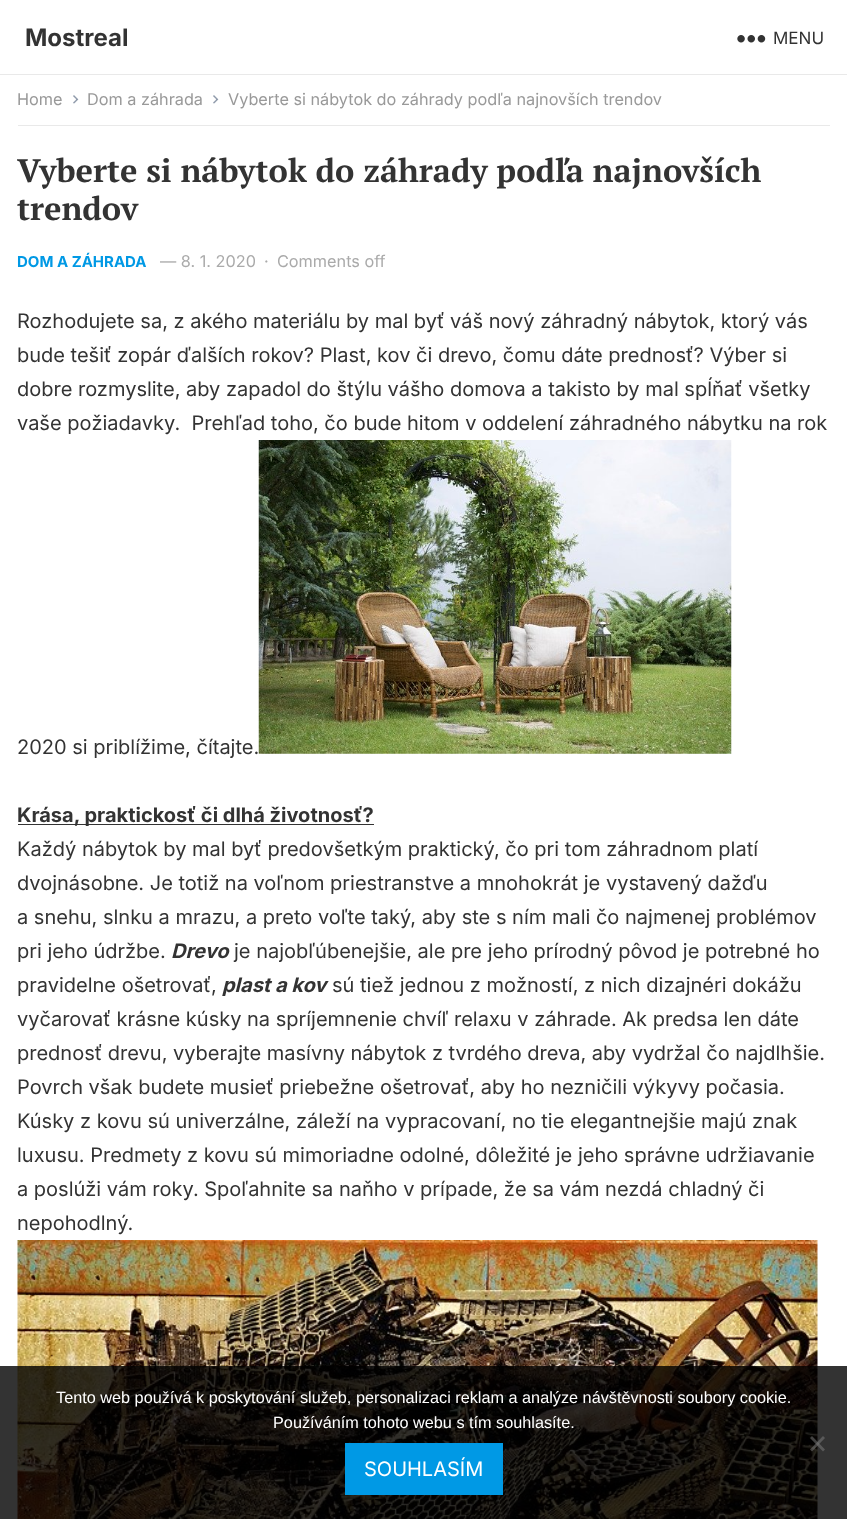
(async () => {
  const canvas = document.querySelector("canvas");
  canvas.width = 847;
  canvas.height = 1519;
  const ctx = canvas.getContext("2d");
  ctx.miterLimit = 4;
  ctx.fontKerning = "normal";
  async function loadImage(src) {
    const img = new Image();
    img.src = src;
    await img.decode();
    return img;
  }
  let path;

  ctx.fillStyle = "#ffffff";
  ctx.fillRect(0, 0, 847, 1519);
  ctx.fillStyle = "#e9e9e9";
  ctx.fillRect(0, 74, 847, 1);
  ctx.drawImage(await loadImage("img/1.png"), 737, 35, 29, 8);
  ctx.fillRect(18, 125, 812, 1);
  ctx.drawImage(await loadImage("img/2.png"), 73, 95, 6, 9);
  ctx.drawImage(await loadImage("img/2.png"), 213, 95, 6, 9);
  ctx.drawImage(await loadImage("img/3.png"), 258, 440, 474, 314);
  ctx.fillStyle = "#333333";
  ctx.fillRect(18, 824, 356, 1);
  ctx.drawImage(await loadImage("img/4.png"), 17, 1240, 801, 279);
  ctx.fillStyle = "rgba(0, 0, 0, 0.8)";
  ctx.fillRect(0, 1366, 847, 153);
  ctx.fillStyle = "rgba(128, 128, 128, 0.5)";
  path = new Path2D("M823 1436L825 1438L812 1451.5L810 1449.5Z");
  ctx.fill(path);
  path = new Path2D("M810 1438L812 1436L825 1449.5L823 1451.5Z");
  ctx.fill(path);
  ctx.fillStyle = "#0099e5";
  ctx.fillRect(345, 1443, 158, 52);
  ctx.font = "bold 24px Inter";
  ctx.fillStyle = "#333333";
  ctx.fillText("Mostreal", 25, 46);
  ctx.font = "17px Inter";
  ctx.fillText("MENU", 773, 44);
  ctx.font = "16.25px Inter";
  ctx.fillStyle = "#999999";
  for (const [text, x, y] of [
    ["Home", 17, 105],
    ["Dom a záhrada", 87, 105],
    ["Vyberte si nábytok do záhrady podľa najnovších trendov", 228, 105],
  ]) {
    ctx.fillText(text, x, y);
  }
  ctx.font = "bold 32.5px PT Serif";
  ctx.fillStyle = "#333333";
  ctx.fillText("Vyberte si nábytok do záhrady podľa najnovších", 17, 182);
  ctx.fillText("trendov", 17, 220);
  ctx.font = "bold 15px Inter";
  ctx.fillStyle = "#0099e5";
  ctx.fillText("DOM A ZÁHRADA", 17, 267);
  ctx.font = "16.25px Inter";
  ctx.fillStyle = "#aaaaaa";
  for (const [text, x, y] of [
    ["— 8. 1. 2020", 160, 267],
    ["·", 264, 267],
    ["Comments off", 277, 267],
  ]) {
    ctx.fillText(text, x, y);
  }
  ctx.font = "20px Inter";
  ctx.fillStyle = "#333333";
  for (const [text, x, y] of [
    ["Rozhodujete sa, z akého materiálu by mal byť váš nový záhradný nábytok, ktorý vás", 17, 328],
    ["bude tešiť zopár ďalších rokov? Plast, kov či drevo, čomu dáte prednosť? Výber si", 17, 362],
    ["dobre rozmyslite, aby zapadol do štýlu vášho domova a takisto by mal spĺňať všetky", 17, 396],
    ["vaše požiadavky.  Prehľad toho, čo bude hitom v oddelení záhradného nábytku na rok", 17, 430],
    ["2020 si priblížime, čítajte.", 17, 754],
  ]) {
    ctx.fillText(text, x, y);
  }
  ctx.font = "bold 20px Inter";
  ctx.fillText("Krása, praktickosť či dlhá životnosť?", 17, 822);
  ctx.font = "20px Inter";
  for (const [text, x, y] of [
    ["Každý nábytok by mal byť predovšetkým praktický, čo pri tom záhradnom platí", 17, 856],
    ["dvojnásobne. Je totiž na voľnom priestranstve a mnohokrát je vystavený dažďu", 17, 890],
    ["a snehu, slnku a mrazu, a preto voľte taký, aby ste s ním mali čo najmenej problémov", 17, 924],
    ["pri jeho údržbe.", 17, 958],
  ]) {
    ctx.fillText(text, x, y);
  }
  ctx.font = "italic bold 20px Inter";
  ctx.fillText("Drevo", 171, 958);
  ctx.font = "20px Inter";
  ctx.fillText("je najobľúbenejšie, ale pre jeho prírodný pôvod je potrebné ho", 234, 958);
  ctx.fillText("pravidelne ošetrovať,", 17, 992);
  ctx.font = "italic bold 20px Inter";
  ctx.fillText("plast a kov", 222, 992);
  ctx.font = "20px Inter";
  for (const [text, x, y] of [
    ["sú tiež jednou z možností, z nich dizajnéri dokážu", 332, 992],
    ["vyčarovať krásne kúsky na spríjemnenie chvíľ relaxu v záhrade. Ak predsa len dáte", 17, 1026],
    ["prednosť drevu, vyberajte masívny nábytok z tvrdého dreva, aby vydržal čo najdlhšie.", 17, 1060],
    ["Povrch však budete musieť priebežne ošetrovať, aby ho nezničili výkyvy počasia.", 17, 1094],
    ["Kúsky z kovu sú univerzálne, záleží na vypracovaní, no tie elegantnejšie majú znak", 17, 1128],
    ["luxusu. Predmety z kovu sú mimoriadne odolné, dôležité je jeho správne udržiavanie", 17, 1162],
    ["a poslúži vám roky. Spoľahnite sa naňho v prípade, že sa vám nezdá chladný či", 17, 1196],
    ["nepohodlný.", 17, 1230],
  ]) {
    ctx.fillText(text, x, y);
  }
  ctx.font = "16.25px Liberation Sans";
  ctx.fillStyle = "#ffffff";
  ctx.fillText("Tento web používá k poskytování služeb, personalizaci reklam a analýze návštěvnosti soubory cookie.", 56, 1403);
  ctx.fillText("Používáním tohoto webu s tím souhlasíte.", 273, 1428);
  ctx.font = "20px Inter";
  ctx.fillText("SOUHLASÍM", 364, 1476);
})();
